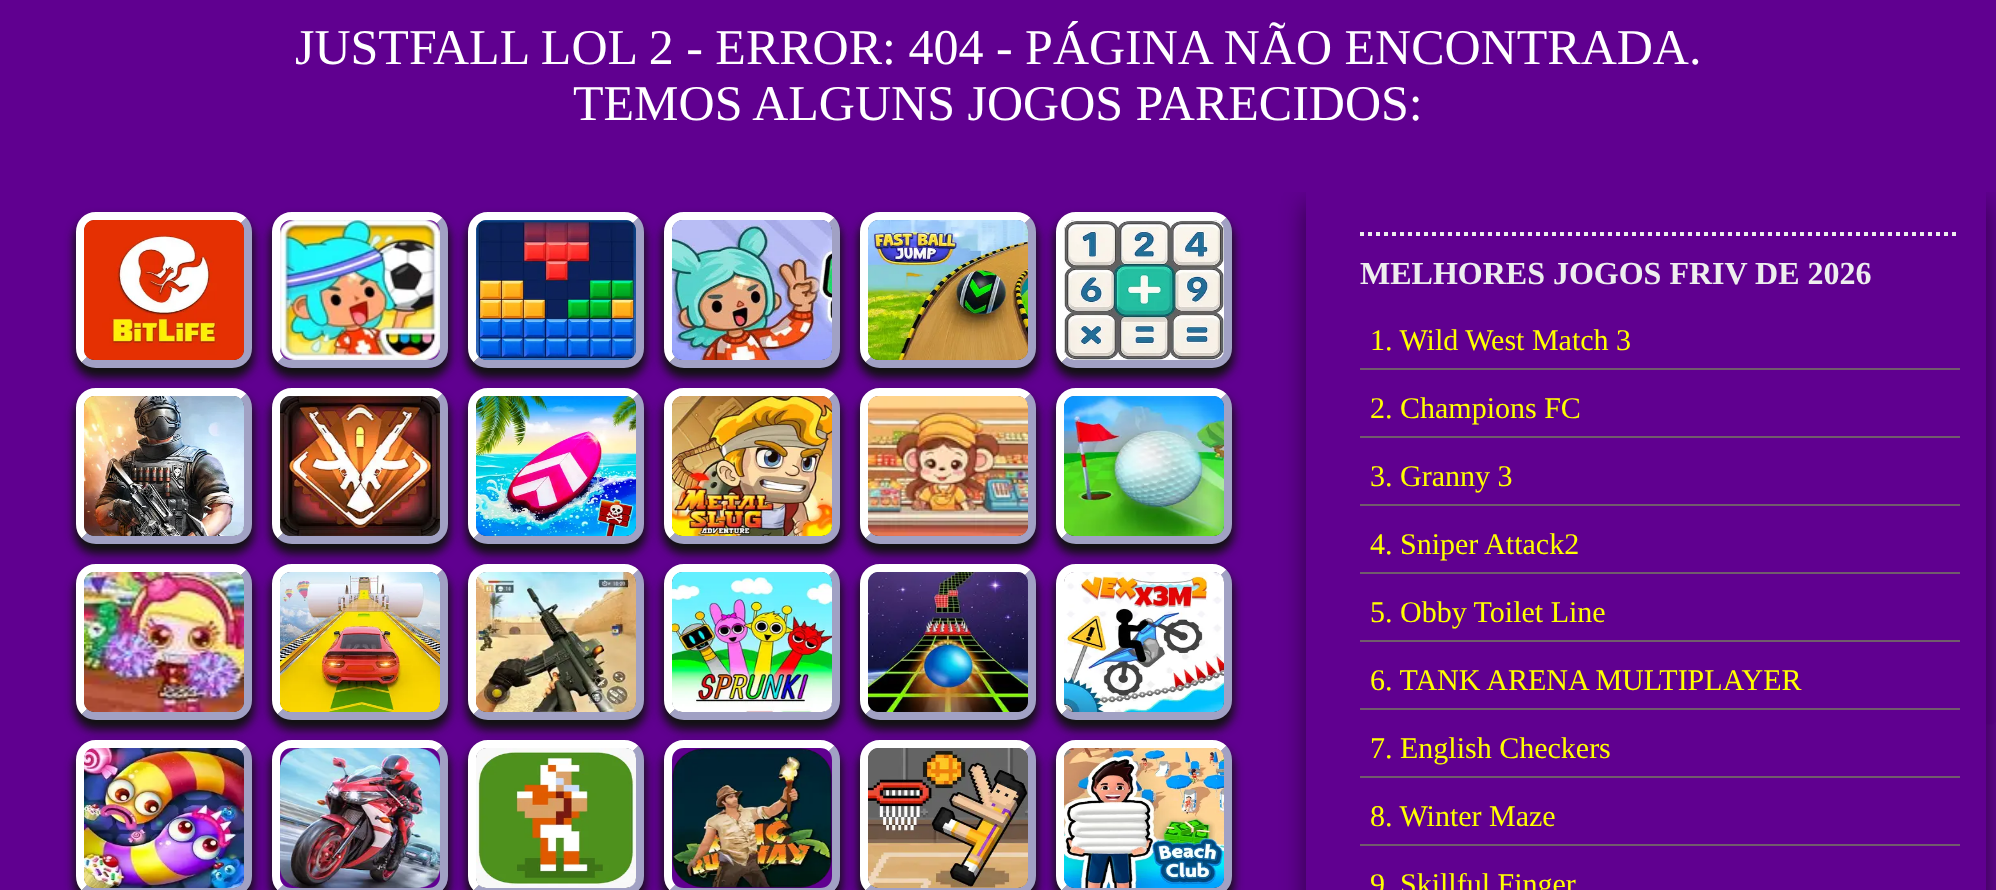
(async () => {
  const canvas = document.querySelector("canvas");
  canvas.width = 1996;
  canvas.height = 890;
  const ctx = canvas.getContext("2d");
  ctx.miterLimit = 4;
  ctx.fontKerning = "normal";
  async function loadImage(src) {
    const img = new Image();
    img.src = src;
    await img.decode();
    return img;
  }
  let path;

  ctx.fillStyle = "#ffffff";
  ctx.fillRect(0, 0, 1996, 890);
  ctx.drawImage(await loadImage("img/1.png"), 0, 0, 1996, 890);
  ctx.fillStyle = "#111111";
  ctx.filter = "blur(5px)";
  ctx.beginPath();
  ctx.roundRect(74, 218, 180, 160, 22);
  ctx.fill();
  ctx.filter = "none";
  path = new Path2D("M243.5 220.5C246.5 223.5 248 228 248 232V348C248 352 246.5 356.5 243.5 359.5C240.5 362.5 236 364 232 364H96C92 364 87.5 362.5 84.5 359.5");
  ctx.strokeStyle = "#a1a1c4";
  ctx.lineWidth = 8;
  ctx.stroke(path);
  path = new Path2D("M84.5 359.5C81.5 356.5 80 352 80 348V232C80 228 81.5 223.5 84.5 220.5C87.5 217.5 92 216 96 216H232C236 216 240.5 217.5 243.5 220.5");
  ctx.strokeStyle = "#ffffff";
  ctx.stroke(path);
  ctx.drawImage(await loadImage("img/2.png"), 84, 220, 160, 140);
  ctx.save();
  path = new Path2D("M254 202H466V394H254ZM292 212H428C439 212 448 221 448 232V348C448 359 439 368 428 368H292C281 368 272 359 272 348V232C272 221 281 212 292 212Z");
  ctx.clip(path, "evenodd");
  ctx.filter = "blur(5px)";
  ctx.beginPath();
  ctx.roundRect(270, 218, 180, 160, 22);
  ctx.fill();
  ctx.filter = "none";
  ctx.restore();
  path = new Path2D("M439.5 220.5C442.5 223.5 444 228 444 232V348C444 352 442.5 356.5 439.5 359.5C436.5 362.5 432 364 428 364H292C288 364 283.5 362.5 280.5 359.5");
  ctx.strokeStyle = "#a1a1c4";
  ctx.stroke(path);
  path = new Path2D("M280.5 359.5C277.5 356.5 276 352 276 348V232C276 228 277.5 223.5 280.5 220.5C283.5 217.5 288 216 292 216H428C432 216 436.5 217.5 439.5 220.5");
  ctx.strokeStyle = "#ffffff";
  ctx.stroke(path);
  ctx.drawImage(await loadImage("img/3.png"), 280, 220, 160, 140);
  ctx.filter = "blur(5px)";
  ctx.beginPath();
  ctx.roundRect(466, 218, 180, 160, 22);
  ctx.fill();
  ctx.filter = "none";
  path = new Path2D("M635.5 220.5C638.5 223.5 640 228 640 232V348C640 352 638.5 356.5 635.5 359.5C632.5 362.5 628 364 624 364H488C484 364 479.5 362.5 476.5 359.5");
  ctx.strokeStyle = "#a1a1c4";
  ctx.stroke(path);
  path = new Path2D("M476.5 359.5C473.5 356.5 472 352 472 348V232C472 228 473.5 223.5 476.5 220.5C479.5 217.5 484 216 488 216H624C628 216 632.5 217.5 635.5 220.5");
  ctx.strokeStyle = "#ffffff";
  ctx.stroke(path);
  ctx.drawImage(await loadImage("img/4.png"), 476, 220, 160, 140);
  ctx.filter = "blur(5px)";
  ctx.beginPath();
  ctx.roundRect(662, 218, 180, 160, 22);
  ctx.fill();
  ctx.filter = "none";
  path = new Path2D("M831.5 220.5C834.5 223.5 836 228 836 232V348C836 352 834.5 356.5 831.5 359.5C828.5 362.5 824 364 820 364H684C680 364 675.5 362.5 672.5 359.5");
  ctx.strokeStyle = "#a1a1c4";
  ctx.stroke(path);
  path = new Path2D("M672.5 359.5C669.5 356.5 668 352 668 348V232C668 228 669.5 223.5 672.5 220.5C675.5 217.5 680 216 684 216H820C824 216 828.5 217.5 831.5 220.5");
  ctx.strokeStyle = "#ffffff";
  ctx.stroke(path);
  ctx.drawImage(await loadImage("img/5.png"), 672, 220, 160, 140);
  ctx.filter = "blur(5px)";
  ctx.beginPath();
  ctx.roundRect(858, 218, 180, 160, 22);
  ctx.fill();
  ctx.filter = "none";
  path = new Path2D("M1027.5 220.5C1030.5 223.5 1032 228 1032 232V348C1032 352 1030.5 356.5 1027.5 359.5C1024.5 362.5 1020 364 1016 364H880C876 364 871.5 362.5 868.5 359.5");
  ctx.strokeStyle = "#a1a1c4";
  ctx.stroke(path);
  path = new Path2D("M868.5 359.5C865.5 356.5 864 352 864 348V232C864 228 865.5 223.5 868.5 220.5C871.5 217.5 876 216 880 216H1016C1020 216 1024.5 217.5 1027.5 220.5");
  ctx.strokeStyle = "#ffffff";
  ctx.stroke(path);
  ctx.drawImage(await loadImage("img/6.png"), 868, 220, 160, 140);
  ctx.filter = "blur(5px)";
  ctx.beginPath();
  ctx.roundRect(1054, 218, 180, 160, 22);
  ctx.fill();
  ctx.filter = "none";
  path = new Path2D("M1223.5 220.5C1226.5 223.5 1228 228 1228 232V348C1228 352 1226.5 356.5 1223.5 359.5C1220.5 362.5 1216 364 1212 364H1076C1072 364 1067.5 362.5 1064.5 359.5");
  ctx.strokeStyle = "#a1a1c4";
  ctx.stroke(path);
  path = new Path2D("M1064.5 359.5C1061.5 356.5 1060 352 1060 348V232C1060 228 1061.5 223.5 1064.5 220.5C1067.5 217.5 1072 216 1076 216H1212C1216 216 1220.5 217.5 1223.5 220.5");
  ctx.strokeStyle = "#ffffff";
  ctx.stroke(path);
  ctx.drawImage(await loadImage("img/7.png"), 1064, 220, 160, 140);
  ctx.save();
  ctx.beginPath();
  ctx.rect(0, 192, 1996, 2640);
  ctx.clip();
  ctx.fillStyle = "rgba(0, 0, 0, 0.52)";
  ctx.filter = "blur(12px)";
  ctx.beginPath();
  ctx.rect(1306, 204, 680, 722);
  ctx.fill();
  ctx.filter = "none";
  ctx.restore();
  ctx.fillStyle = "#600090";
  ctx.fillRect(1306, 192, 680, 698);
  path = new Path2D("M1360 234H1960");
  ctx.strokeStyle = "#eeeeee";
  ctx.lineWidth = 4;
  ctx.setLineDash([4, 4]);
  ctx.stroke(path);
  for (const [x, y, w, h, color] of [
    [1360, 368, 600, 2, "#715c6c"],
    [1360, 436, 600, 2, "#715c6c"],
    [1360, 504, 600, 2, "#715c6c"],
    [1360, 572, 600, 2, "#715c6c"],
    [1360, 640, 600, 2, "#715c6c"],
    [1360, 708, 600, 2, "#715c6c"],
    [1360, 776, 600, 2, "#715c6c"],
    [1360, 844, 600, 2, "#715c6c"],
  ]) {
    ctx.fillStyle = color;
    ctx.fillRect(x, y, w, h);
  }
  ctx.fillStyle = "#111111";
  ctx.filter = "blur(5px)";
  ctx.beginPath();
  ctx.roundRect(74, 394, 180, 160, 22);
  ctx.fill();
  ctx.filter = "none";
  path = new Path2D("M243.5 396.5C246.5 399.5 248 404 248 408V524C248 528 246.5 532.5 243.5 535.5C240.5 538.5 236 540 232 540H96C92 540 87.5 538.5 84.5 535.5");
  ctx.strokeStyle = "#a1a1c4";
  ctx.lineWidth = 8;
  ctx.setLineDash([]);
  ctx.stroke(path);
  path = new Path2D("M84.5 535.5C81.5 532.5 80 528 80 524V408C80 404 81.5 399.5 84.5 396.5C87.5 393.5 92 392 96 392H232C236 392 240.5 393.5 243.5 396.5");
  ctx.strokeStyle = "#ffffff";
  ctx.stroke(path);
  ctx.drawImage(await loadImage("img/8.png"), 84, 396, 160, 140);
  ctx.filter = "blur(5px)";
  ctx.beginPath();
  ctx.roundRect(270, 394, 180, 160, 22);
  ctx.fill();
  ctx.filter = "none";
  path = new Path2D("M439.5 396.5C442.5 399.5 444 404 444 408V524C444 528 442.5 532.5 439.5 535.5C436.5 538.5 432 540 428 540H292C288 540 283.5 538.5 280.5 535.5");
  ctx.strokeStyle = "#a1a1c4";
  ctx.stroke(path);
  path = new Path2D("M280.5 535.5C277.5 532.5 276 528 276 524V408C276 404 277.5 399.5 280.5 396.5C283.5 393.5 288 392 292 392H428C432 392 436.5 393.5 439.5 396.5");
  ctx.strokeStyle = "#ffffff";
  ctx.stroke(path);
  ctx.drawImage(await loadImage("img/9.png"), 280, 396, 160, 140);
  ctx.filter = "blur(5px)";
  ctx.beginPath();
  ctx.roundRect(466, 394, 180, 160, 22);
  ctx.fill();
  ctx.filter = "none";
  path = new Path2D("M635.5 396.5C638.5 399.5 640 404 640 408V524C640 528 638.5 532.5 635.5 535.5C632.5 538.5 628 540 624 540H488C484 540 479.5 538.5 476.5 535.5");
  ctx.strokeStyle = "#a1a1c4";
  ctx.stroke(path);
  path = new Path2D("M476.5 535.5C473.5 532.5 472 528 472 524V408C472 404 473.5 399.5 476.5 396.5C479.5 393.5 484 392 488 392H624C628 392 632.5 393.5 635.5 396.5");
  ctx.strokeStyle = "#ffffff";
  ctx.stroke(path);
  ctx.drawImage(await loadImage("img/10.png"), 476, 396, 160, 140);
  ctx.filter = "blur(5px)";
  ctx.beginPath();
  ctx.roundRect(662, 394, 180, 160, 22);
  ctx.fill();
  ctx.filter = "none";
  path = new Path2D("M831.5 396.5C834.5 399.5 836 404 836 408V524C836 528 834.5 532.5 831.5 535.5C828.5 538.5 824 540 820 540H684C680 540 675.5 538.5 672.5 535.5");
  ctx.strokeStyle = "#a1a1c4";
  ctx.stroke(path);
  path = new Path2D("M672.5 535.5C669.5 532.5 668 528 668 524V408C668 404 669.5 399.5 672.5 396.5C675.5 393.5 680 392 684 392H820C824 392 828.5 393.5 831.5 396.5");
  ctx.strokeStyle = "#ffffff";
  ctx.stroke(path);
  ctx.drawImage(await loadImage("img/11.png"), 672, 396, 160, 140);
  ctx.filter = "blur(5px)";
  ctx.beginPath();
  ctx.roundRect(858, 394, 180, 160, 22);
  ctx.fill();
  ctx.filter = "none";
  path = new Path2D("M1027.5 396.5C1030.5 399.5 1032 404 1032 408V524C1032 528 1030.5 532.5 1027.5 535.5C1024.5 538.5 1020 540 1016 540H880C876 540 871.5 538.5 868.5 535.5");
  ctx.strokeStyle = "#a1a1c4";
  ctx.stroke(path);
  path = new Path2D("M868.5 535.5C865.5 532.5 864 528 864 524V408C864 404 865.5 399.5 868.5 396.5C871.5 393.5 876 392 880 392H1016C1020 392 1024.5 393.5 1027.5 396.5");
  ctx.strokeStyle = "#ffffff";
  ctx.stroke(path);
  ctx.drawImage(await loadImage("img/12.png"), 868, 396, 160, 140);
  ctx.filter = "blur(5px)";
  ctx.beginPath();
  ctx.roundRect(1054, 394, 180, 160, 22);
  ctx.fill();
  ctx.filter = "none";
  path = new Path2D("M1223.5 396.5C1226.5 399.5 1228 404 1228 408V524C1228 528 1226.5 532.5 1223.5 535.5C1220.5 538.5 1216 540 1212 540H1076C1072 540 1067.5 538.5 1064.5 535.5");
  ctx.strokeStyle = "#a1a1c4";
  ctx.stroke(path);
  path = new Path2D("M1064.5 535.5C1061.5 532.5 1060 528 1060 524V408C1060 404 1061.5 399.5 1064.5 396.5C1067.5 393.5 1072 392 1076 392H1212C1216 392 1220.5 393.5 1223.5 396.5");
  ctx.strokeStyle = "#ffffff";
  ctx.stroke(path);
  ctx.drawImage(await loadImage("img/13.png"), 1064, 396, 160, 140);
  ctx.filter = "blur(5px)";
  ctx.beginPath();
  ctx.roundRect(74, 570, 180, 160, 22);
  ctx.fill();
  ctx.filter = "none";
  path = new Path2D("M243.5 572.5C246.5 575.5 248 580 248 584V700C248 704 246.5 708.5 243.5 711.5C240.5 714.5 236 716 232 716H96C92 716 87.5 714.5 84.5 711.5");
  ctx.strokeStyle = "#a1a1c4";
  ctx.stroke(path);
  path = new Path2D("M84.5 711.5C81.5 708.5 80 704 80 700V584C80 580 81.5 575.5 84.5 572.5C87.5 569.5 92 568 96 568H232C236 568 240.5 569.5 243.5 572.5");
  ctx.strokeStyle = "#ffffff";
  ctx.stroke(path);
  ctx.drawImage(await loadImage("img/14.png"), 84, 572, 160, 140);
  ctx.filter = "blur(5px)";
  ctx.beginPath();
  ctx.roundRect(270, 570, 180, 160, 22);
  ctx.fill();
  ctx.filter = "none";
  path = new Path2D("M439.5 572.5C442.5 575.5 444 580 444 584V700C444 704 442.5 708.5 439.5 711.5C436.5 714.5 432 716 428 716H292C288 716 283.5 714.5 280.5 711.5");
  ctx.strokeStyle = "#a1a1c4";
  ctx.stroke(path);
  path = new Path2D("M280.5 711.5C277.5 708.5 276 704 276 700V584C276 580 277.5 575.5 280.5 572.5C283.5 569.5 288 568 292 568H428C432 568 436.5 569.5 439.5 572.5");
  ctx.strokeStyle = "#ffffff";
  ctx.stroke(path);
  ctx.drawImage(await loadImage("img/15.png"), 280, 572, 160, 140);
  ctx.filter = "blur(5px)";
  ctx.beginPath();
  ctx.roundRect(466, 570, 180, 160, 22);
  ctx.fill();
  ctx.filter = "none";
  path = new Path2D("M635.5 572.5C638.5 575.5 640 580 640 584V700C640 704 638.5 708.5 635.5 711.5C632.5 714.5 628 716 624 716H488C484 716 479.5 714.5 476.5 711.5");
  ctx.strokeStyle = "#a1a1c4";
  ctx.stroke(path);
  path = new Path2D("M476.5 711.5C473.5 708.5 472 704 472 700V584C472 580 473.5 575.5 476.5 572.5C479.5 569.5 484 568 488 568H624C628 568 632.5 569.5 635.5 572.5");
  ctx.strokeStyle = "#ffffff";
  ctx.stroke(path);
  ctx.drawImage(await loadImage("img/16.png"), 476, 572, 160, 140);
  ctx.filter = "blur(5px)";
  ctx.beginPath();
  ctx.roundRect(662, 570, 180, 160, 22);
  ctx.fill();
  ctx.filter = "none";
  path = new Path2D("M831.5 572.5C834.5 575.5 836 580 836 584V700C836 704 834.5 708.5 831.5 711.5C828.5 714.5 824 716 820 716H684C680 716 675.5 714.5 672.5 711.5");
  ctx.strokeStyle = "#a1a1c4";
  ctx.stroke(path);
  path = new Path2D("M672.5 711.5C669.5 708.5 668 704 668 700V584C668 580 669.5 575.5 672.5 572.5C675.5 569.5 680 568 684 568H820C824 568 828.5 569.5 831.5 572.5");
  ctx.strokeStyle = "#ffffff";
  ctx.stroke(path);
  ctx.drawImage(await loadImage("img/17.png"), 672, 572, 160, 140);
  ctx.filter = "blur(5px)";
  ctx.beginPath();
  ctx.roundRect(858, 570, 180, 160, 22);
  ctx.fill();
  ctx.filter = "none";
  path = new Path2D("M1027.5 572.5C1030.5 575.5 1032 580 1032 584V700C1032 704 1030.5 708.5 1027.5 711.5C1024.5 714.5 1020 716 1016 716H880C876 716 871.5 714.5 868.5 711.5");
  ctx.strokeStyle = "#a1a1c4";
  ctx.stroke(path);
  path = new Path2D("M868.5 711.5C865.5 708.5 864 704 864 700V584C864 580 865.5 575.5 868.5 572.5C871.5 569.5 876 568 880 568H1016C1020 568 1024.5 569.5 1027.5 572.5");
  ctx.strokeStyle = "#ffffff";
  ctx.stroke(path);
  ctx.drawImage(await loadImage("img/18.png"), 868, 572, 160, 140);
  ctx.filter = "blur(5px)";
  ctx.beginPath();
  ctx.roundRect(1054, 570, 180, 160, 22);
  ctx.fill();
  ctx.filter = "none";
  path = new Path2D("M1223.5 572.5C1226.5 575.5 1228 580 1228 584V700C1228 704 1226.5 708.5 1223.5 711.5C1220.5 714.5 1216 716 1212 716H1076C1072 716 1067.5 714.5 1064.5 711.5");
  ctx.strokeStyle = "#a1a1c4";
  ctx.stroke(path);
  path = new Path2D("M1064.5 711.5C1061.5 708.5 1060 704 1060 700V584C1060 580 1061.5 575.5 1064.5 572.5C1067.5 569.5 1072 568 1076 568H1212C1216 568 1220.5 569.5 1223.5 572.5");
  ctx.strokeStyle = "#ffffff";
  ctx.stroke(path);
  ctx.drawImage(await loadImage("img/19.png"), 1064, 572, 160, 140);
  ctx.filter = "blur(5px)";
  ctx.beginPath();
  ctx.roundRect(74, 746, 180, 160, 22);
  ctx.fill();
  ctx.filter = "none";
  path = new Path2D("M243.5 748.5C246.5 751.5 248 756 248 760V876C248 880 246.5 884.5 243.5 887.5C240.5 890.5 236 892 232 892H96C92 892 87.5 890.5 84.5 887.5");
  ctx.strokeStyle = "#a1a1c4";
  ctx.stroke(path);
  path = new Path2D("M84.5 887.5C81.5 884.5 80 880 80 876V760C80 756 81.5 751.5 84.5 748.5C87.5 745.5 92 744 96 744H232C236 744 240.5 745.5 243.5 748.5");
  ctx.strokeStyle = "#ffffff";
  ctx.stroke(path);
  ctx.drawImage(await loadImage("img/20.png"), 84, 748, 160, 140);
  ctx.save();
  path = new Path2D("M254 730H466V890H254ZM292 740H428C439 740 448 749 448 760V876C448 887 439 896 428 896H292C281 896 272 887 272 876V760C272 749 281 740 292 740Z");
  ctx.clip(path, "evenodd");
  ctx.filter = "blur(5px)";
  ctx.beginPath();
  ctx.roundRect(270, 746, 180, 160, 22);
  ctx.fill();
  ctx.filter = "none";
  ctx.restore();
  path = new Path2D("M439.5 748.5C442.5 751.5 444 756 444 760V876C444 880 442.5 884.5 439.5 887.5C436.5 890.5 432 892 428 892H292C288 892 283.5 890.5 280.5 887.5");
  ctx.strokeStyle = "#a1a1c4";
  ctx.stroke(path);
  path = new Path2D("M280.5 887.5C277.5 884.5 276 880 276 876V760C276 756 277.5 751.5 280.5 748.5C283.5 745.5 288 744 292 744H428C432 744 436.5 745.5 439.5 748.5");
  ctx.strokeStyle = "#ffffff";
  ctx.stroke(path);
  ctx.drawImage(await loadImage("img/21.png"), 280, 748, 160, 140);
  ctx.filter = "blur(5px)";
  ctx.beginPath();
  ctx.roundRect(466, 746, 180, 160, 22);
  ctx.fill();
  ctx.filter = "none";
  path = new Path2D("M635.5 748.5C638.5 751.5 640 756 640 760V876C640 880 638.5 884.5 635.5 887.5C632.5 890.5 628 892 624 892H488C484 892 479.5 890.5 476.5 887.5");
  ctx.strokeStyle = "#a1a1c4";
  ctx.stroke(path);
  path = new Path2D("M476.5 887.5C473.5 884.5 472 880 472 876V760C472 756 473.5 751.5 476.5 748.5C479.5 745.5 484 744 488 744H624C628 744 632.5 745.5 635.5 748.5");
  ctx.strokeStyle = "#ffffff";
  ctx.stroke(path);
  ctx.drawImage(await loadImage("img/22.png"), 476, 748, 160, 140);
  ctx.save();
  path = new Path2D("M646 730H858V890H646ZM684 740H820C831 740 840 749 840 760V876C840 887 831 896 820 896H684C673 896 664 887 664 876V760C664 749 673 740 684 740Z");
  ctx.clip(path, "evenodd");
  ctx.filter = "blur(5px)";
  ctx.beginPath();
  ctx.roundRect(662, 746, 180, 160, 22);
  ctx.fill();
  ctx.filter = "none";
  ctx.restore();
  path = new Path2D("M831.5 748.5C834.5 751.5 836 756 836 760V876C836 880 834.5 884.5 831.5 887.5C828.5 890.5 824 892 820 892H684C680 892 675.5 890.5 672.5 887.5");
  ctx.strokeStyle = "#a1a1c4";
  ctx.stroke(path);
  path = new Path2D("M672.5 887.5C669.5 884.5 668 880 668 876V760C668 756 669.5 751.5 672.5 748.5C675.5 745.5 680 744 684 744H820C824 744 828.5 745.5 831.5 748.5");
  ctx.strokeStyle = "#ffffff";
  ctx.stroke(path);
  ctx.drawImage(await loadImage("img/23.png"), 672, 748, 160, 140);
  ctx.filter = "blur(5px)";
  ctx.beginPath();
  ctx.roundRect(858, 746, 180, 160, 22);
  ctx.fill();
  ctx.filter = "none";
  path = new Path2D("M1027.5 748.5C1030.5 751.5 1032 756 1032 760V876C1032 880 1030.5 884.5 1027.5 887.5C1024.5 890.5 1020 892 1016 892H880C876 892 871.5 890.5 868.5 887.5");
  ctx.strokeStyle = "#a1a1c4";
  ctx.stroke(path);
  path = new Path2D("M868.5 887.5C865.5 884.5 864 880 864 876V760C864 756 865.5 751.5 868.5 748.5C871.5 745.5 876 744 880 744H1016C1020 744 1024.5 745.5 1027.5 748.5");
  ctx.strokeStyle = "#ffffff";
  ctx.stroke(path);
  ctx.drawImage(await loadImage("img/24.png"), 868, 748, 160, 140);
  ctx.filter = "blur(5px)";
  ctx.beginPath();
  ctx.roundRect(1054, 746, 180, 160, 22);
  ctx.fill();
  ctx.filter = "none";
  path = new Path2D("M1223.5 748.5C1226.5 751.5 1228 756 1228 760V876C1228 880 1226.5 884.5 1223.5 887.5C1220.5 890.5 1216 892 1212 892H1076C1072 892 1067.5 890.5 1064.5 887.5");
  ctx.strokeStyle = "#a1a1c4";
  ctx.stroke(path);
  path = new Path2D("M1064.5 887.5C1061.5 884.5 1060 880 1060 876V760C1060 756 1061.5 751.5 1064.5 748.5C1067.5 745.5 1072 744 1076 744H1212C1216 744 1220.5 745.5 1223.5 748.5");
  ctx.strokeStyle = "#ffffff";
  ctx.stroke(path);
  ctx.drawImage(await loadImage("img/25.png"), 1064, 748, 160, 140);
  ctx.font = "50px Liberation Serif";
  ctx.fillStyle = "#ffffff";
  ctx.fillText("JUSTFALL LOL 2 - ERROR: 404 - PÁGINA NÃO ENCONTRADA.", 295, 64);
  ctx.fillText("TEMOS ALGUNS JOGOS PARECIDOS:", 573, 120);
  ctx.font = "bold 32px Liberation Serif";
  ctx.fillStyle = "#eeeeee";
  ctx.fillText("MELHORES JOGOS FRIV DE 2026", 1360, 284);
  ctx.font = "30px Liberation Serif";
  ctx.fillStyle = "#ffff00";
  for (const [text, x, y] of [
    ["1. Wild West Match 3", 1370, 350],
    ["2. Champions FC", 1370, 418],
    ["3. Granny 3", 1370, 486],
    ["4. Sniper Attack2", 1370, 554],
    ["5. Obby Toilet Line", 1370, 622],
    ["6. TANK ARENA MULTIPLAYER", 1370, 690],
    ["7. English Checkers", 1370, 758],
    ["8. Winter Maze", 1370, 826],
    ["9. Skillful Finger", 1370, 894],
  ]) {
    ctx.fillText(text, x, y);
  }
})();
